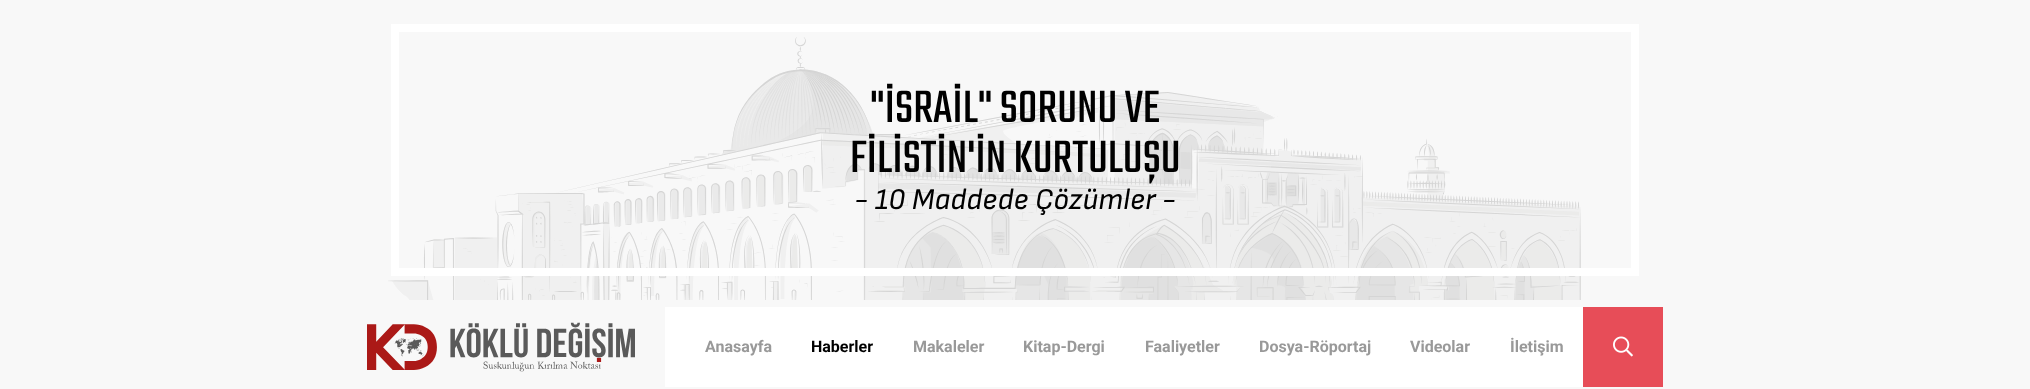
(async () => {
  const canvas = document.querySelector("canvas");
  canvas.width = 2030;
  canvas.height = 389;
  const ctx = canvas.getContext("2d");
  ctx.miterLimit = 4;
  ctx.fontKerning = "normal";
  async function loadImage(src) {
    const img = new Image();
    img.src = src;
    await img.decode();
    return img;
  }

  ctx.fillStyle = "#f8f8f8";
  ctx.fillRect(0, 0, 2030, 389);
  ctx.drawImage(await loadImage("img/1.png"), 388, 37, 1193, 263);
  ctx.strokeStyle = "#ffffff";
  ctx.lineWidth = 8;
  ctx.strokeRect(395, 28, 1240, 244);
  ctx.drawImage(await loadImage("img/2.png"), 367, 322, 268, 50);
  ctx.fillStyle = "#ffffff";
  ctx.fillRect(665, 307, 918, 80);
  ctx.fillStyle = "#e74d58";
  ctx.fillRect(1583, 307, 80, 80);
  ctx.drawImage(await loadImage("img/3.png"), 1613, 336, 20, 21);
  ctx.font = "300 50px Teko";
  ctx.fillStyle = "#000000";
  ctx.fillText("\"İSRAİL\" SORUNU VE", 870, 122);
  ctx.fillText("FİLİSTİN'İN KURTULUŞU", 850, 172);
  ctx.font = "italic 30px Sofia Sans";
  ctx.fillText("- 10 Maddede Çözümler -", 854, 209);
  ctx.font = "bold 16px Roboto";
  ctx.fillStyle = "#999999";
  ctx.fillText("Anasayfa", 705, 352);
  ctx.fillStyle = "#000000";
  ctx.fillText("Haberler", 811, 352);
  ctx.fillStyle = "#999999";
  for (const [text, x, y] of [
    ["Makaleler", 913, 352],
    ["Kitap-Dergi", 1023, 352],
    ["Faaliyetler", 1145, 352],
    ["Dosya-Röportaj", 1259, 352],
    ["Videolar", 1410, 352],
    ["İletişim", 1510, 352],
  ]) {
    ctx.fillText(text, x, y);
  }
})();
